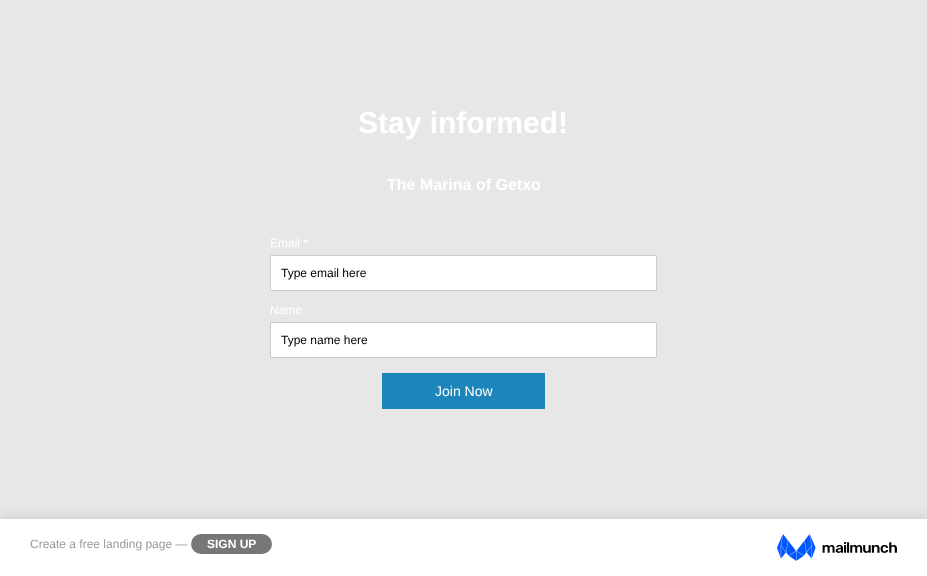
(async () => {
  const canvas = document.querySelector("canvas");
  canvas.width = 927;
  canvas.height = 576;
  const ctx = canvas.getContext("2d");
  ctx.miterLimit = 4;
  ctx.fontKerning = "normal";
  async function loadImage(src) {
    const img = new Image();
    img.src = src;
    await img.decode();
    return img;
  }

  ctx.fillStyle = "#e7e7e7";
  ctx.fillRect(0, 0, 927, 576);
  ctx.fillStyle = "#ffffff";
  ctx.beginPath();
  ctx.rect(270.5, 255.5, 386, 35);
  ctx.fill();
  ctx.strokeStyle = "#cccccc";
  ctx.stroke();
  ctx.beginPath();
  ctx.rect(270.5, 322.5, 386, 35);
  ctx.fill();
  ctx.stroke();
  ctx.fillStyle = "#1c86ba";
  ctx.fillRect(382, 373, 163, 36);
  ctx.fillStyle = "rgba(0, 0, 0, 0.1)";
  ctx.filter = "blur(5px)";
  ctx.beginPath();
  ctx.rect(0, 516, 927, 57);
  ctx.fill();
  ctx.filter = "none";
  ctx.fillStyle = "#ffffff";
  ctx.fillRect(0, 519, 927, 57);
  ctx.fillStyle = "#777777";
  ctx.beginPath();
  ctx.roundRect(191, 534, 81, 20, 10);
  ctx.fill();
  ctx.drawImage(await loadImage("img/1.png"), 777, 534, 120, 27);
  ctx.font = "bold 30px Liberation Sans";
  ctx.fillStyle = "#ffffff";
  ctx.fillText("Stay informed!", 358, 133);
  ctx.font = "bold 16px Liberation Sans";
  ctx.fillText("The Marina of Getxo", 387, 190);
  ctx.font = "12px Liberation Sans";
  ctx.fillText("Email *", 270, 247);
  ctx.fillStyle = "#000000";
  ctx.fillText("Type email here", 281, 277);
  ctx.fillStyle = "#ffffff";
  ctx.fillText("Name", 270, 314);
  ctx.fillStyle = "#000000";
  ctx.fillText("Type name here", 281, 344);
  ctx.font = "14px Liberation Sans";
  ctx.fillStyle = "#ffffff";
  ctx.fillText("Join Now", 435, 396);
  ctx.font = "12px Liberation Sans";
  ctx.fillStyle = "#999999";
  ctx.fillText("Create a free landing page —", 30, 548);
  ctx.font = "bold 12px Liberation Sans";
  ctx.fillStyle = "#ffffff";
  ctx.fillText("SIGN UP", 207, 548);
})();
